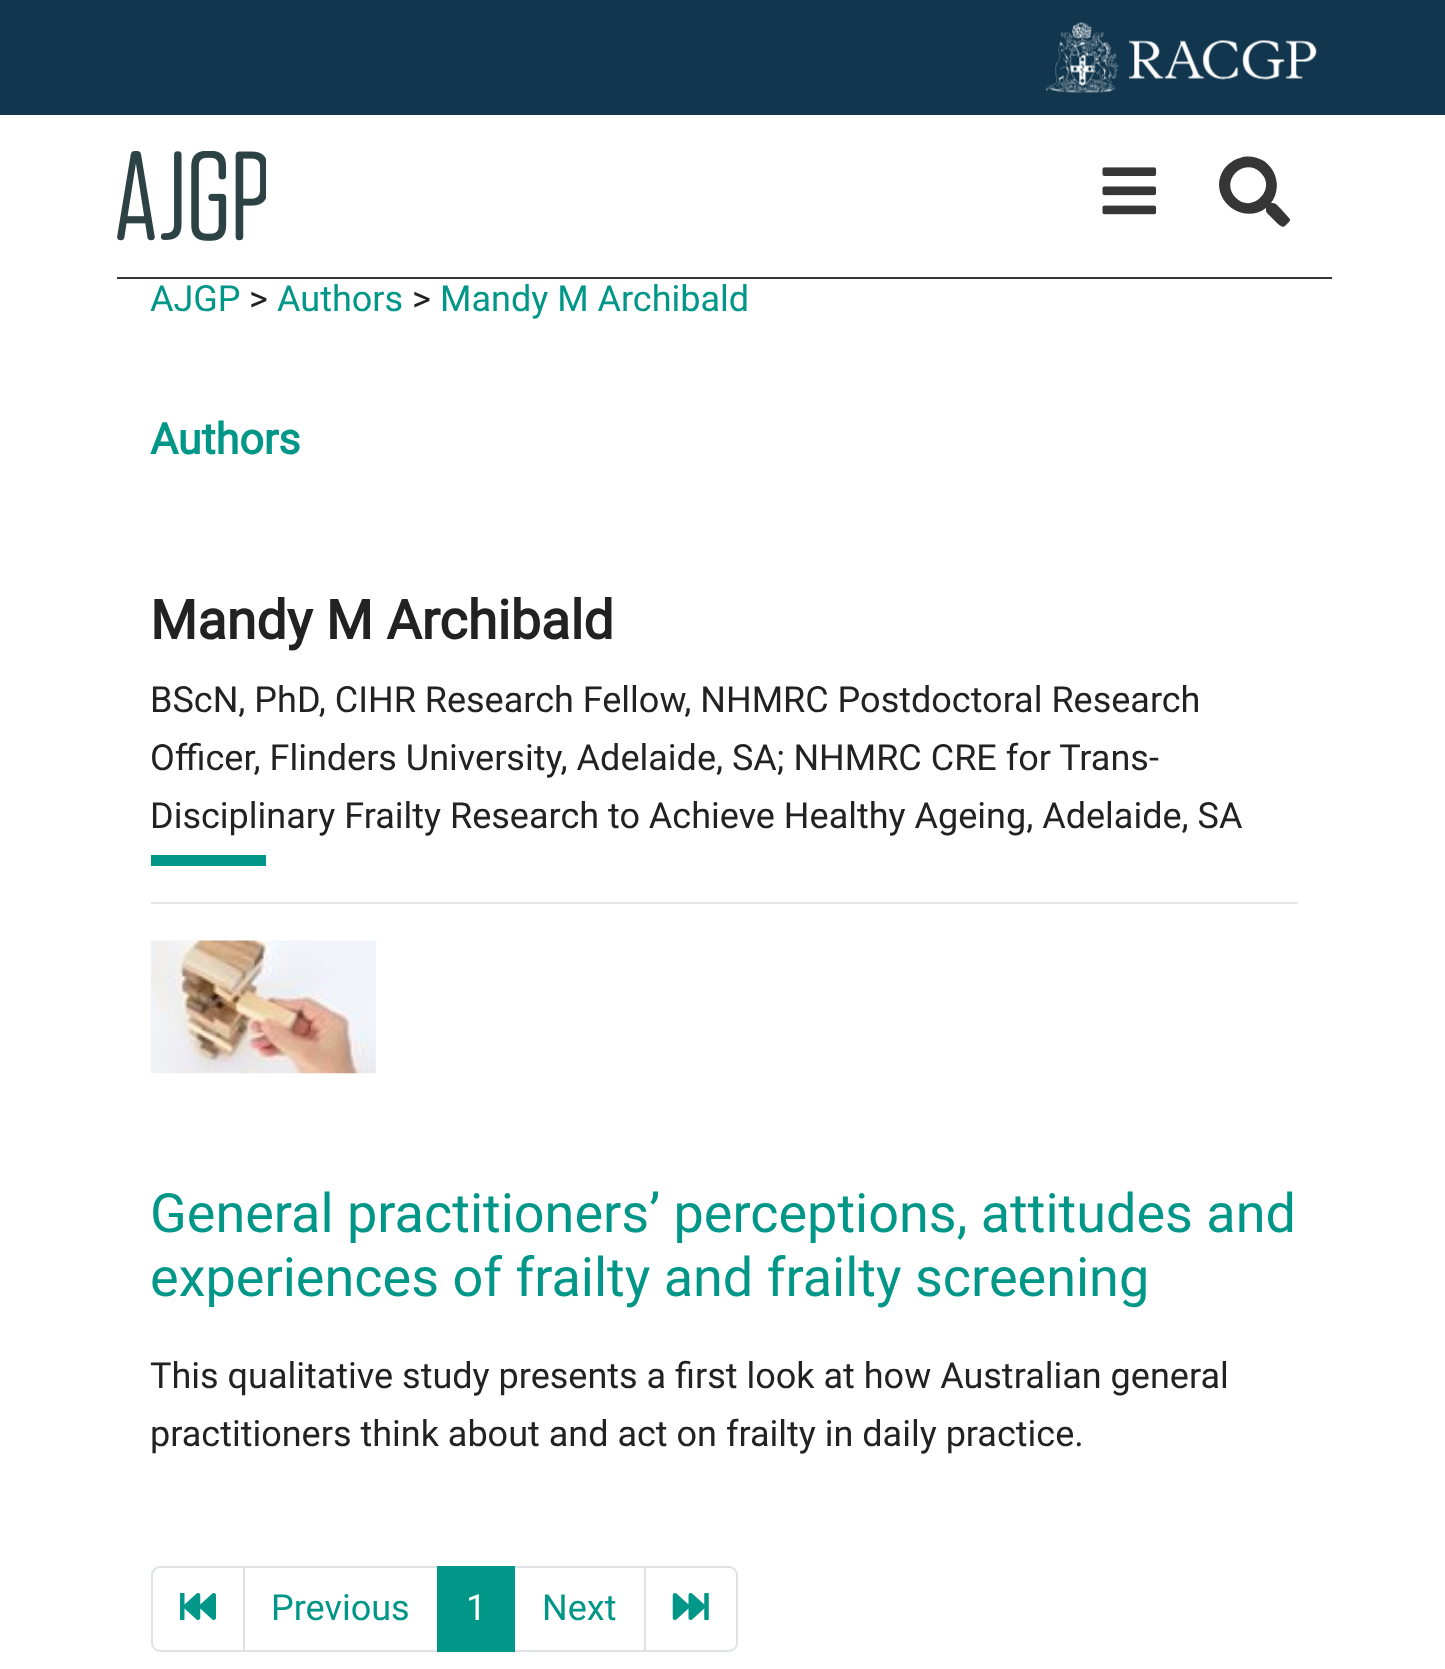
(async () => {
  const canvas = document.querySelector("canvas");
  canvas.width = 1445;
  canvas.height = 1669;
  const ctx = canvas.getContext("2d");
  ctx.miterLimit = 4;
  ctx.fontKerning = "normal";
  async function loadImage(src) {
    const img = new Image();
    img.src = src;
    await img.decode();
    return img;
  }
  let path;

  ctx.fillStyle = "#ffffff";
  ctx.fillRect(0, 0, 1445, 1669);
  ctx.fillStyle = "#11364d";
  ctx.fillRect(0, 0, 1445, 115);
  ctx.drawImage(await loadImage("img/1.png"), 1046, 22, 271, 71);
  ctx.fillStyle = "#363636";
  ctx.fillRect(117, 277, 1215, 2);
  ctx.drawImage(await loadImage("img/2.png"), 117, 151, 149, 90);
  ctx.drawImage(await loadImage("img/3.png"), 1102, 167, 55, 48);
  path = new Path2D("M1289 218C1292 220 1288 223 1286 225C1283 228 1282 227 1278 224L1269 215C1266 212 1266 212 1266 208C1241 227 1206 196 1224 169C1228 164 1233 160 1240 158C1248 155 1257 157 1264 161C1278 171 1281 190 1271 203C1276 203 1276 204 1280 208ZM1236 198C1252 214 1277 189 1261 173C1244 156 1219 181 1236 198Z");
  ctx.fill(path);
  ctx.fillStyle = "#009688";
  ctx.fillRect(151, 855, 115, 11);
  ctx.fillStyle = "#e6e6e6";
  ctx.fillRect(151, 902, 1147, 2);
  ctx.drawImage(await loadImage("img/4.png"), 150, 940, 226, 134);
  ctx.beginPath();
  ctx.roundRect(152, 1567, 92, 84, [8, 0, 0, 8]);
  ctx.strokeStyle = "#dee2e6";
  ctx.lineWidth = 2;
  ctx.stroke();
  ctx.drawImage(await loadImage("img/5.png"), 180, 1593, 36, 27);
  ctx.strokeRect(244, 1567, 194, 84);
  ctx.strokeRect(514, 1567, 131, 84);
  ctx.fillStyle = "#009688";
  ctx.fillRect(437, 1566, 78, 86);
  ctx.fillStyle = "#ffffff";
  ctx.beginPath();
  ctx.roundRect(645, 1567, 92, 84, [0, 8, 8, 0]);
  ctx.fill();
  ctx.stroke();
  ctx.drawImage(await loadImage("img/6.png"), 672, 1593, 37, 27);
  ctx.font = "36px Roboto";
  ctx.fillStyle = "#009688";
  ctx.fillText("AJGP", 150, 311);
  ctx.fillStyle = "#222222";
  ctx.fillText(">", 249, 311);
  ctx.fillStyle = "#009688";
  ctx.fillText("Authors", 277, 311);
  ctx.fillStyle = "#222222";
  ctx.fillText(">", 412, 311);
  ctx.fillStyle = "#009688";
  ctx.fillText("Mandy M Archibald", 440, 311);
  ctx.font = "bold 43px Roboto";
  ctx.fillText("Authors", 150, 454);
  ctx.font = "bold 54px Roboto";
  ctx.fillStyle = "#222222";
  ctx.fillText("Mandy M Archibald", 150, 639);
  ctx.font = "36px Roboto";
  for (const [text, x, y] of [
    ["BScN, PhD, CIHR Research Fellow, NHMRC Postdoctoral Research", 150, 712],
    ["Officer, Flinders University, Adelaide, SA; NHMRC CRE for Trans-", 150, 770],
    ["Disciplinary Frailty Research to Achieve Healthy Ageing, Adelaide, SA", 150, 828],
  ]) {
    ctx.fillText(text, x, y);
  }
  ctx.font = "54px Roboto";
  ctx.fillStyle = "#009688";
  ctx.fillText("General practitioners’ perceptions, attitudes and", 150, 1232);
  ctx.fillText("experiences of frailty and frailty screening", 150, 1296);
  ctx.font = "36px Roboto";
  ctx.fillStyle = "#222222";
  ctx.fillText("This qualitative study presents a first look at how Australian general", 150, 1388);
  ctx.fillText("practitioners think about and act on frailty in daily practice.", 150, 1446);
  ctx.fillStyle = "#009688";
  ctx.fillText("Previous", 271, 1620);
  ctx.fillStyle = "#ffffff";
  ctx.fillText("1", 466, 1620);
  ctx.fillStyle = "#009688";
  ctx.fillText("Next", 542, 1620);
})();
